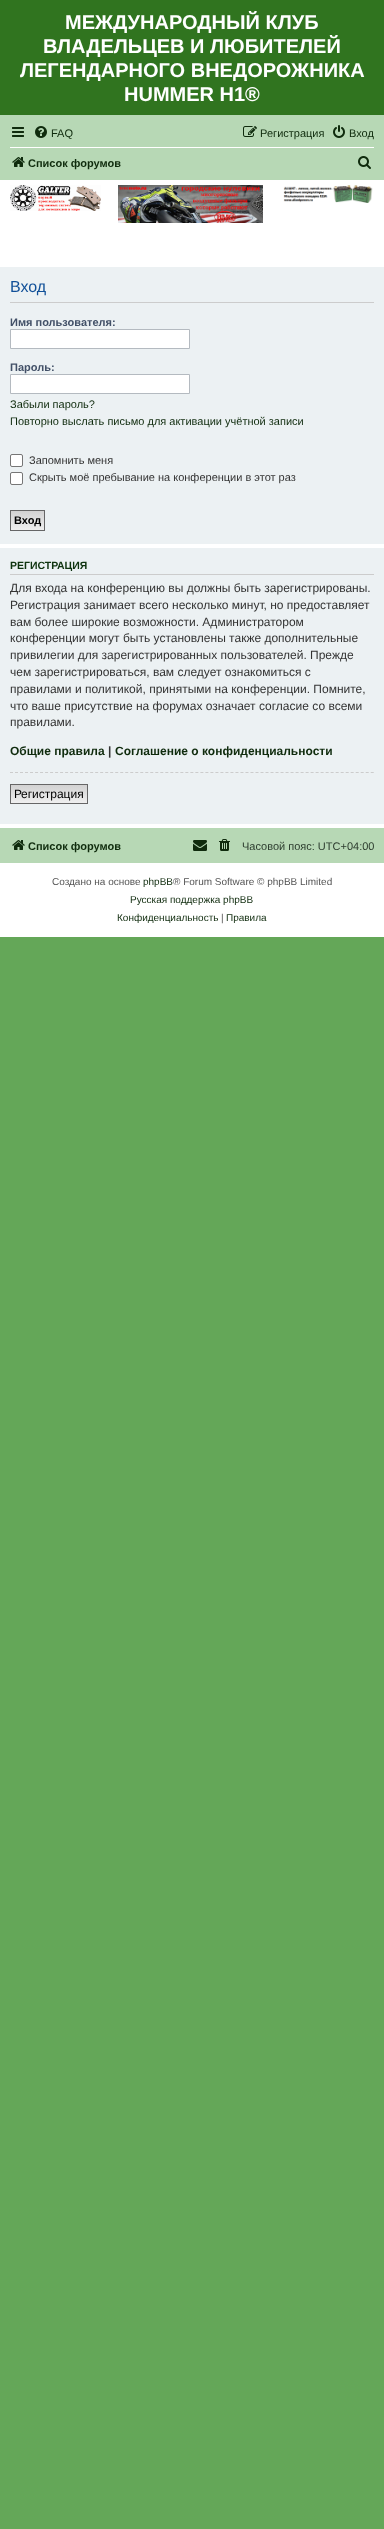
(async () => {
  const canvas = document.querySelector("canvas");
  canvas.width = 384;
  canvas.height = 2529;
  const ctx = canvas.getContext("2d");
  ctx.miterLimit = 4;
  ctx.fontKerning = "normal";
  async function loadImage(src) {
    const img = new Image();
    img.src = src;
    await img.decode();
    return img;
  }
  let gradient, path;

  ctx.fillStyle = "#64a758";
  ctx.fillRect(0, 0, 384, 2529);
  for (const [x, y, w, h, color] of [
    [0, 180, 384, 757, "#ffffff"],
    [0, 0, 384, 115, "#30741f"],
    [0, 115, 384, 65, "#b7d8b5"],
  ]) {
    ctx.fillStyle = color;
    ctx.fillRect(x, y, w, h);
  }
  ctx.drawImage(await loadImage("img/1.png"), 12, 127, 12, 10);
  ctx.drawImage(await loadImage("img/2.png"), 35, 126, 12, 12);
  ctx.drawImage(await loadImage("img/3.png"), 243, 126, 14, 11);
  ctx.drawImage(await loadImage("img/4.png"), 333, 125, 12, 13);
  ctx.fillStyle = "#ffffff";
  ctx.fillRect(10, 147, 364, 1);
  ctx.drawImage(await loadImage("img/5.png"), 12, 157, 13, 10);
  ctx.drawImage(await loadImage("img/6.png"), 358, 156, 13, 13);
  ctx.drawImage(await loadImage("img/7.png"), 10, 185, 91, 26);
  ctx.drawImage(await loadImage("img/8.png"), 118, 185, 145, 38);
  ctx.drawImage(await loadImage("img/9.png"), 283, 185, 90, 18);
  ctx.fillStyle = "#ecf1f3";
  ctx.fillRect(0, 267, 384, 277);
  ctx.fillStyle = "#cccccc";
  ctx.fillRect(10, 302, 364, 1);
  ctx.fillStyle = "#ffffff";
  ctx.beginPath();
  ctx.rect(10.5, 329.5, 179, 19);
  ctx.fill();
  ctx.strokeStyle = "#b4bac0";
  ctx.stroke();
  ctx.beginPath();
  ctx.rect(10.5, 374.5, 179, 19);
  ctx.fill();
  ctx.stroke();
  ctx.beginPath();
  ctx.roundRect(10.5, 454.5, 12, 12, 1.5);
  ctx.fill();
  ctx.strokeStyle = "#767676";
  ctx.stroke();
  ctx.beginPath();
  ctx.roundRect(10.5, 472.5, 12, 12, 1.5);
  ctx.fill();
  ctx.stroke();
  gradient = ctx.createLinearGradient(28, 511, 28, 530);
  gradient.addColorStop(0, "#d2d2d2");
  gradient.addColorStop(1, "#efefef");
  ctx.fillStyle = gradient;
  ctx.fillRect(11, 511, 33, 19);
  ctx.strokeStyle = "#666666";
  ctx.strokeRect(10.5, 510.5, 34, 20);
  ctx.fillStyle = "#ecf1f3";
  ctx.fillRect(0, 548, 384, 276);
  ctx.fillStyle = "#cccccc";
  ctx.fillRect(10, 574, 364, 1);
  path = new Path2D("M10 772.5H374");
  ctx.strokeStyle = "#cccccc";
  ctx.setLineDash([3, 2.01]);
  ctx.stroke(path);
  gradient = ctx.createLinearGradient(49, 785, 49, 803);
  gradient.addColorStop(0, "#d2d2d2");
  gradient.addColorStop(1, "#efefef");
  ctx.fillStyle = gradient;
  ctx.fillRect(11, 785, 76, 18);
  ctx.strokeStyle = "#666666";
  ctx.setLineDash([]);
  ctx.strokeRect(10.5, 784.5, 77, 19);
  ctx.fillStyle = "#b7d8b5";
  ctx.fillRect(0, 828, 384, 35);
  ctx.drawImage(await loadImage("img/5.png"), 12, 840, 13, 10);
  ctx.drawImage(await loadImage("img/10.png"), 193, 840, 14, 11);
  ctx.drawImage(await loadImage("img/11.png"), 219, 839, 11, 12);
  ctx.font = "bold 20px Liberation Sans";
  ctx.fillStyle = "#ffffff";
  for (const [text, x, y] of [
    ["МЕЖДУНАРОДНЫЙ КЛУБ", 65, 29],
    ["ВЛАДЕЛЬЦЕВ И ЛЮБИТЕЛЕЙ", 43, 53],
    ["ЛЕГЕНДАРНОГО ВНЕДОРОЖНИКА", 20, 77],
    ["HUMMER H1®", 124, 101],
  ]) {
    ctx.fillText(text, x, y);
  }
  ctx.font = "11px Liberation Sans";
  ctx.fillStyle = "#0f2b0d";
  for (const [text, x, y] of [
    ["FAQ", 51, 137],
    ["Р", 260, 137],
    ["егистрация", 267, 137],
    ["Вход", 349, 137],
  ]) {
    ctx.fillText(text, x, y);
  }
  ctx.font = "bold 11px Liberation Sans";
  ctx.fillText("Список форумов", 28, 167);
  ctx.font = "16px Liberation Sans";
  ctx.fillStyle = "#115098";
  ctx.fillText("Вход", 10, 292);
  ctx.font = "bold 11px Liberation Sans";
  ctx.fillStyle = "#425067";
  ctx.fillText("Имя пользователя:", 10, 326);
  ctx.fillText("Пароль:", 10, 371);
  ctx.font = "11px Liberation Sans";
  ctx.fillStyle = "#0f2b0d";
  ctx.fillText("Забыли пароль?", 10, 408);
  ctx.fillText("Повторно выслать письмо для активации учётной записи", 10, 425);
  ctx.fillStyle = "#333333";
  ctx.fillText("Запомнить меня", 29, 464);
  ctx.fillText("Скрыть моё пребывание на конференции в этот раз", 29, 481);
  ctx.font = "bold 11px Liberation Sans";
  ctx.fillStyle = "#000000";
  ctx.fillText("Вход", 14, 524);
  ctx.font = "bold 10.5px Liberation Sans";
  ctx.fillStyle = "#0f340f";
  ctx.fillText("РЕГИСТР", 10, 569);
  ctx.fillText("АЦИЯ", 57, 569);
  ctx.font = "12px Liberation Sans";
  ctx.fillStyle = "#333333";
  for (const [text, x, y] of [
    ["Для входа на конференцию вы должны быть зарегистрированы.", 10, 592],
    ["Регистрация занимает всего несколько минут, но предоставляет", 10, 609],
    ["вам более широкие возможности. Администратором", 10, 626],
    ["конференции могут быть установлены также дополнительные", 10, 642],
    ["привилегии для зарегистрированных пользователей. Прежде", 10, 659],
    ["чем зарегистрироваться, вам следует ознакомиться с", 10, 676],
    ["правилами и политикой, принятыми на конференции. Помните,", 10, 693],
    ["что ваше присутствие на форумах означает согласие со всеми", 10, 710],
    ["правилами.", 10, 726],
  ]) {
    ctx.fillText(text, x, y);
  }
  ctx.font = "bold 12px Liberation Sans";
  ctx.fillStyle = "#0f2b0d";
  ctx.fillText("Общие правила", 10, 755);
  ctx.fillStyle = "#333333";
  ctx.fillText("|", 108, 755);
  ctx.fillStyle = "#0f2b0d";
  ctx.fillText("Соглашение о конфиденциальности", 115, 755);
  ctx.font = "12px Liberation Sans";
  ctx.fillStyle = "#000000";
  ctx.fillText("Р", 14, 798);
  ctx.fillText("егистрация", 21, 798);
  ctx.font = "bold 11px Liberation Sans";
  ctx.fillStyle = "#0f2b0d";
  ctx.fillText("Список форумов", 28, 850);
  ctx.font = "11px Liberation Sans";
  ctx.fillStyle = "#2d3d2f";
  ctx.fillText("Часовой пояс: UTC+04:00", 242, 850);
  ctx.font = "10px Liberation Sans";
  ctx.fillStyle = "#555555";
  ctx.fillText("Создано на основе", 52, 885);
  ctx.fillStyle = "#0f2b0d";
  ctx.fillText("phpBB", 143, 885);
  ctx.fillStyle = "#555555";
  ctx.fillText("® Forum Software © phpBB Limited", 173, 885);
  ctx.fillStyle = "#0f2b0d";
  ctx.fillText("Русская поддержка phpBB", 130, 903);
  ctx.fillText("Конфиденциальность", 117, 921);
  ctx.fillStyle = "#555555";
  ctx.fillText("|", 221, 921);
  ctx.fillStyle = "#0f2b0d";
  ctx.fillText("Правила", 226, 921);
})();
